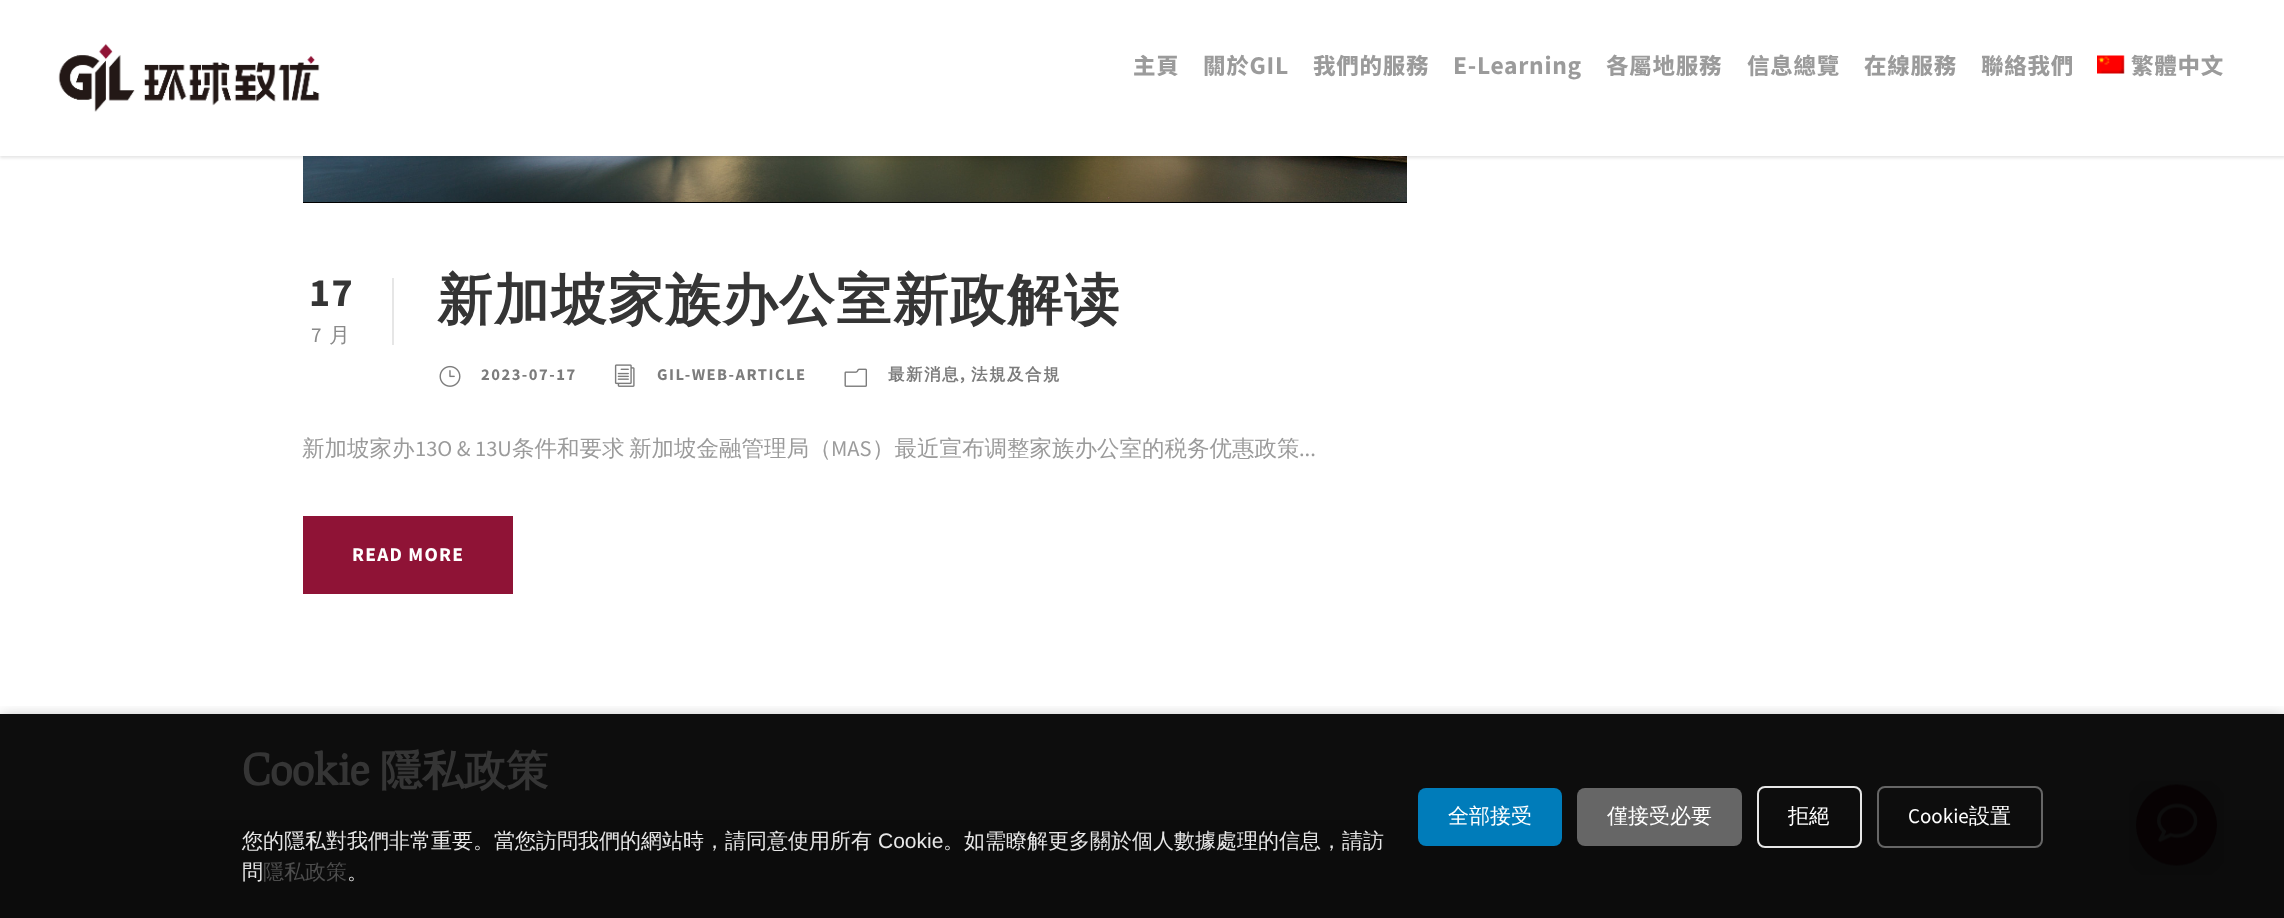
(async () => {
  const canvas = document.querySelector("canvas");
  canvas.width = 2284;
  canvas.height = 918;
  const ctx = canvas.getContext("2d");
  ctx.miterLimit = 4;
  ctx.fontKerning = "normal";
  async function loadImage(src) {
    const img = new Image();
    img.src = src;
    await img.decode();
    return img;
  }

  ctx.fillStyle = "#ffffff";
  ctx.fillRect(0, 0, 2284, 918);
  ctx.fillStyle = "#0d0d0d";
  ctx.fillRect(0, 714, 2284, 106);
  ctx.drawImage(await loadImage("img/3.png"), 303, 156, 1104, 46);
  ctx.fillStyle = "rgba(0, 0, 0, 0.1)";
  ctx.filter = "blur(1.5px)";
  ctx.beginPath();
  ctx.rect(0, 2, 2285, 156);
  ctx.fill();
  ctx.filter = "none";
  ctx.fillStyle = "#ffffff";
  ctx.fillRect(0, 0, 2284, 156);
  ctx.drawImage(await loadImage("img/1.png"), 58, 43, 262, 69);
  ctx.drawImage(await loadImage("img/2.png"), 2097, 55, 28, 19);
  ctx.fillStyle = "#000000";
  ctx.fillRect(303, 202, 1104, 1);
  ctx.fillStyle = "#e6e6e6";
  ctx.fillRect(392, 278, 2, 67);
  ctx.drawImage(await loadImage("img/4.png"), 439, 365, 22, 22);
  ctx.drawImage(await loadImage("img/5.png"), 614, 364, 21, 23);
  ctx.drawImage(await loadImage("img/6.png"), 844, 368, 23, 19);
  ctx.fillStyle = "#8f1336";
  ctx.fillRect(303, 516, 210, 78);
  ctx.fillStyle = "#0c0c0c";
  ctx.fillRect(0, 820, 2284, 98);
  ctx.drawImage(await loadImage("img/7.png"), 2129, 781, 95, 94);
  ctx.save();
  ctx.beginPath();
  ctx.rect(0, 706, 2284, 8);
  ctx.clip();
  ctx.fillStyle = "rgba(0, 0, 0, 0.3)";
  ctx.filter = "blur(7.5px)";
  ctx.beginPath();
  ctx.rect(0, 717, 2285, 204);
  ctx.fill();
  ctx.filter = "none";
  ctx.restore();
  ctx.fillStyle = "#007cba";
  ctx.beginPath();
  ctx.roundRect(1418, 788, 144, 58, 8);
  ctx.fill();
  ctx.fillStyle = "#666666";
  ctx.beginPath();
  ctx.roundRect(1577, 788, 165, 58, 8);
  ctx.fill();
  ctx.beginPath();
  ctx.roundRect(1758, 787, 103, 60, 7);
  ctx.strokeStyle = "#e6e6e6";
  ctx.lineWidth = 2;
  ctx.stroke();
  ctx.beginPath();
  ctx.roundRect(1878, 787, 164, 60, 7);
  ctx.strokeStyle = "#666666";
  ctx.stroke();
  ctx.letterSpacing = "0.75px";
  ctx.font = "800 22.5px Noto Sans TC";
  ctx.fillStyle = "#9b9b9b";
  for (const [text, x, y] of [
    ["主頁", 1133, 74],
    ["關於GIL", 1203, 74],
    ["我們的服務", 1313, 74],
    ["E-Learning", 1453, 74],
    ["各屬地服務", 1606, 74],
    ["信息總覽", 1747, 74],
    ["在線服務", 1864, 74],
    ["聯絡我們", 1981, 74],
    ["繁體中文", 2131, 74],
  ]) {
    ctx.fillText(text, x, y);
  }
  ctx.letterSpacing = "1.5px";
  ctx.font = "bold 40px Source Sans Pro";
  ctx.fillStyle = "#353535";
  ctx.fillText("17", 309, 306);
  ctx.font = "21px Source Sans Pro";
  ctx.fillStyle = "#8a8a8a";
  ctx.fillText("7", 311, 342);
  ctx.font = "500 21px WenQuanYi Zen Hei";
  ctx.fillText("月", 329, 342);
  ctx.font = "bold 55.5px WenQuanYi Zen Hei";
  ctx.fillStyle = "#353535";
  ctx.fillText("新加坡家族办公室新政解读", 437, 319);
  ctx.font = "bold 16.5px Source Sans Pro";
  ctx.fillStyle = "#7c7c7c";
  ctx.fillText("2023-07-17", 481, 380);
  ctx.fillText("GIL-WEB-ARTICLE", 657, 380);
  ctx.font = "bold 16.5px WenQuanYi Zen Hei";
  ctx.fillText("最新消息", 888, 380);
  ctx.font = "bold 16.5px Source Sans Pro";
  ctx.fillText(",", 960, 380);
  ctx.font = "bold 16.5px WenQuanYi Zen Hei";
  ctx.fillText("法規及合規", 971, 380);
  ctx.letterSpacing = "0px";
  ctx.font = "500 22.5px WenQuanYi Zen Hei";
  ctx.fillStyle = "#9b9b9b";
  ctx.fillText("新加坡家办", 302, 456);
  ctx.font = "22.5px Source Sans Pro";
  ctx.fillText("13O & 13U", 415, 456);
  ctx.font = "500 22.5px WenQuanYi Zen Hei";
  ctx.fillText("条件和要求", 512, 456);
  ctx.fillText("新加坡金融管理局（", 629, 456);
  ctx.font = "22.5px Source Sans Pro";
  ctx.fillText("MAS", 831, 456);
  ctx.font = "500 22.5px WenQuanYi Zen Hei";
  ctx.fillText("）最近宣布调整家族办公室的税务优惠政策", 872, 456);
  ctx.font = "22.5px Source Sans Pro";
  ctx.fillText("...", 1299, 456);
  ctx.letterSpacing = "1.25px";
  ctx.font = "bold 19.5px Source Sans Pro";
  ctx.fillStyle = "#ffffff";
  ctx.fillText("READ MORE", 352, 561);
  ctx.letterSpacing = "0px";
  ctx.font = "bold 42px Prociono";
  ctx.fillStyle = "#353535";
  ctx.fillText("Cookie", 242, 785);
  ctx.font = "bold 42px WenQuanYi Zen Hei";
  ctx.fillText("隱私政策", 380, 785);
  ctx.font = "500 21px WenQuanYi Zen Hei";
  ctx.fillStyle = "#e7e7e7";
  ctx.fillText("您的隱私對我們非常重要。當您訪問我們的網站時，請同意使用所有", 242, 848);
  ctx.font = "21px Liberation Sans";
  ctx.fillText("Cookie", 878, 848);
  ctx.font = "500 21px WenQuanYi Zen Hei";
  ctx.fillText("。如需瞭解更多關於個人數據處理的信息，請訪", 943, 848);
  ctx.fillText("問", 242, 879);
  ctx.fillStyle = "#4d4d4d";
  ctx.fillText("隱私政策", 263, 879);
  ctx.fillStyle = "#e7e7e7";
  ctx.fillText("。", 347, 879);
  ctx.fillStyle = "#ffffff";
  for (const [text, x, y] of [
    ["全部接受", 1448, 823],
    ["僅接受必要", 1607, 823],
    ["拒絕", 1788, 823],
  ]) {
    ctx.fillText(text, x, y);
  }
  ctx.font = "21px Source Sans Pro";
  ctx.fillText("Cookie", 1908, 823);
  ctx.font = "500 21px WenQuanYi Zen Hei";
  ctx.fillText("設置", 1969, 823);
})();
